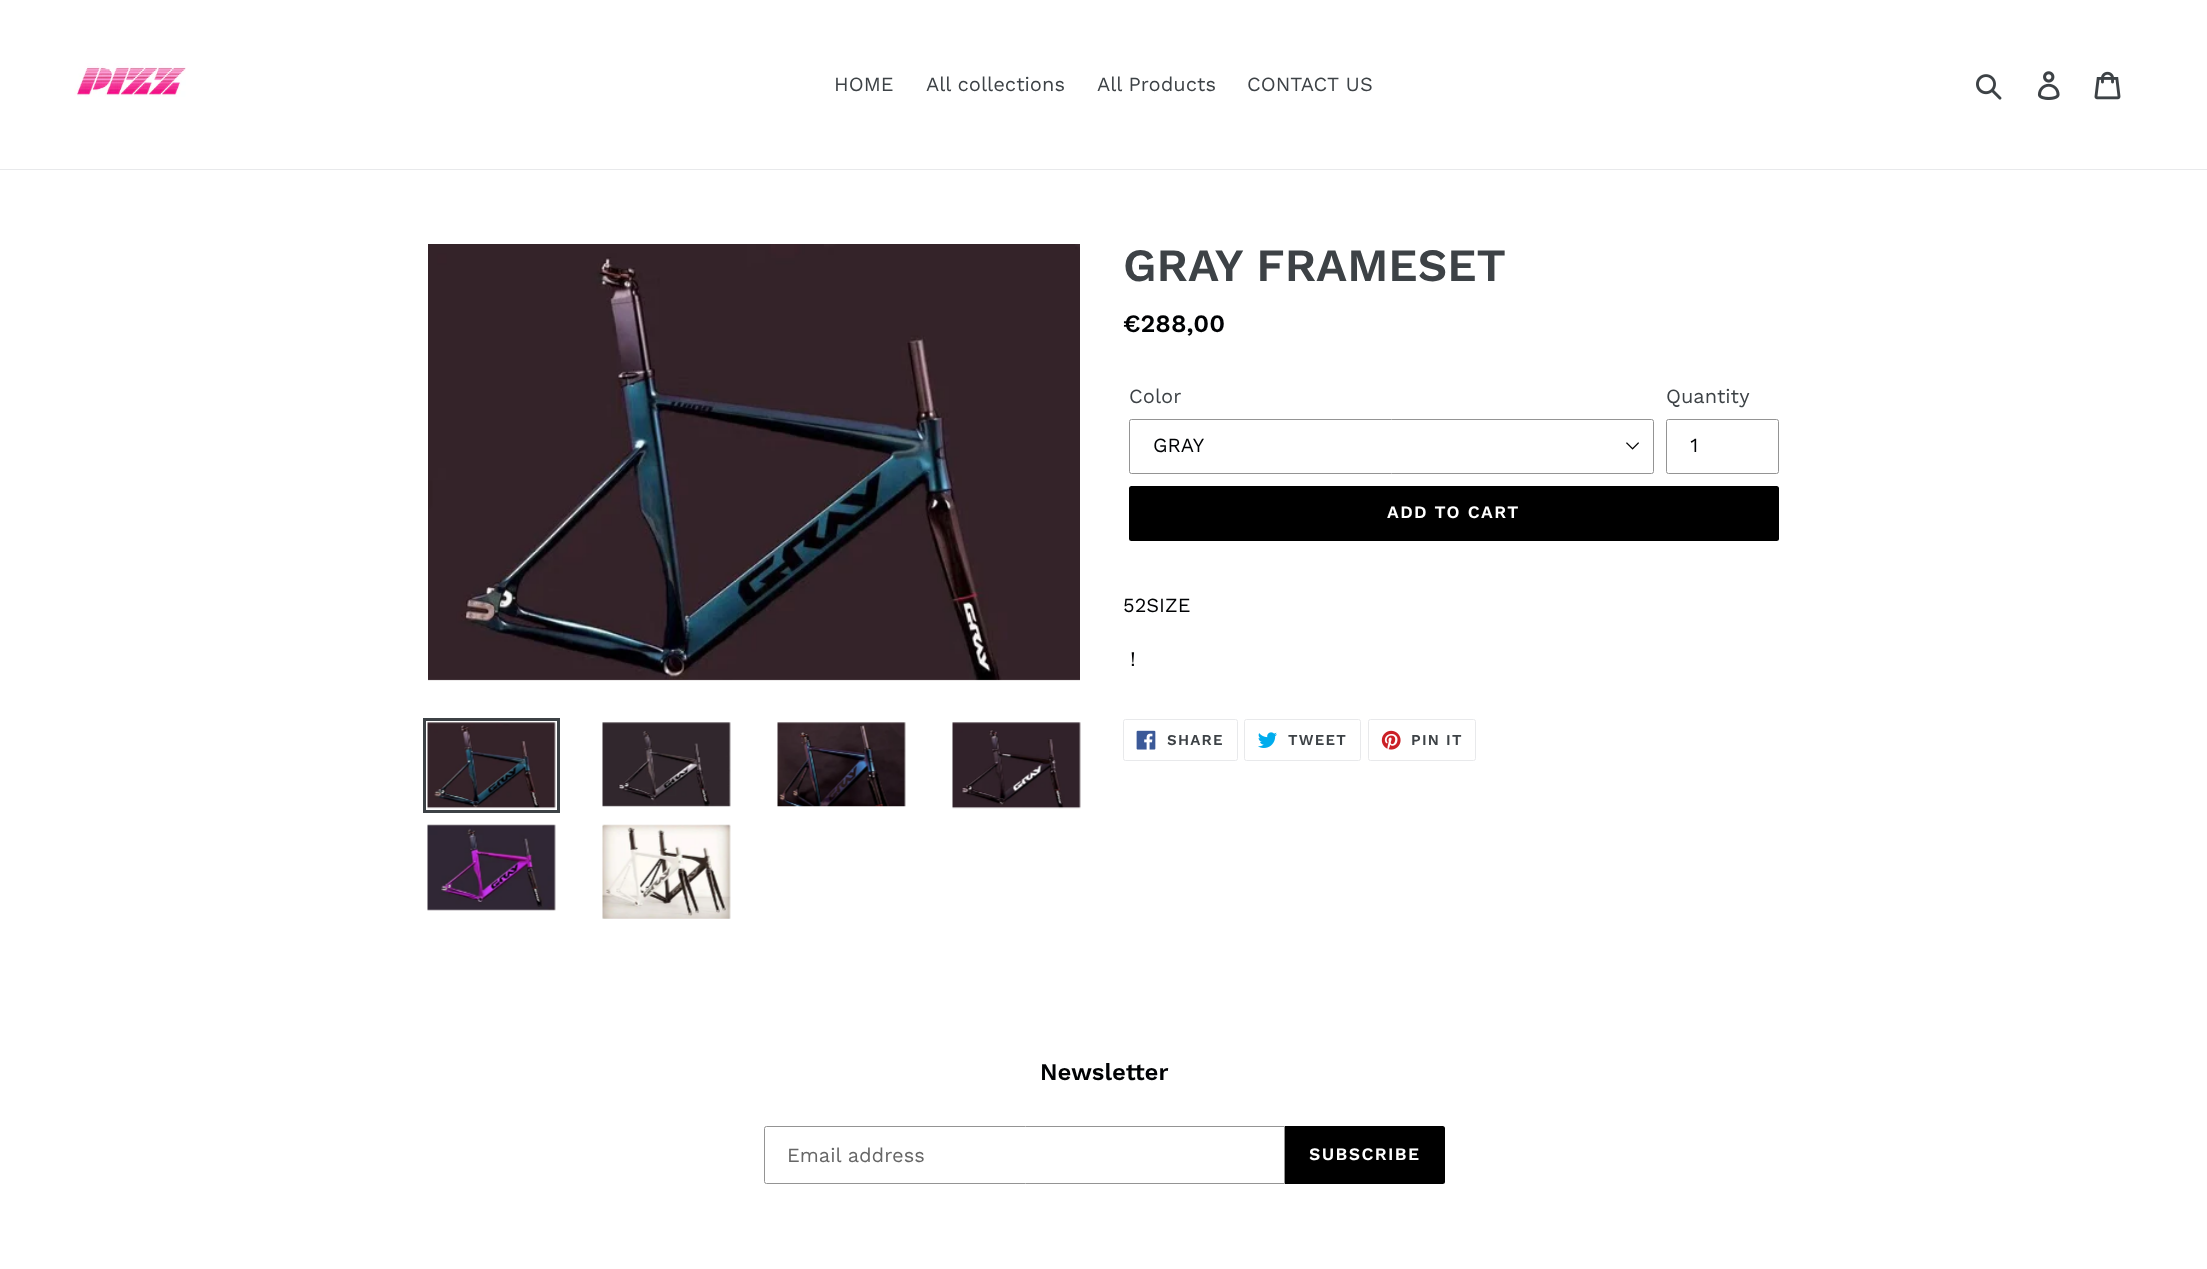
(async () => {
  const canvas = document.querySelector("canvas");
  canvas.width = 2207;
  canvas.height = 1269;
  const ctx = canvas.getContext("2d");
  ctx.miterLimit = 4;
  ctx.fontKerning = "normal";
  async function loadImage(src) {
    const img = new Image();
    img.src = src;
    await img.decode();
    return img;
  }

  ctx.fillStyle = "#ffffff";
  ctx.fillRect(0, 0, 2207, 1269);
  ctx.fillStyle = "#e8e9eb";
  ctx.fillRect(0, 169, 2207, 1);
  ctx.drawImage(await loadImage("img/1.png"), 74, 63, 112, 34);
  ctx.drawImage(await loadImage("img/2.png"), 1976, 74, 26, 26);
  ctx.drawImage(await loadImage("img/3.png"), 2037, 71, 23, 29);
  ctx.drawImage(await loadImage("img/4.png"), 2094, 71, 27, 29);
  ctx.drawImage(await loadImage("img/5.png"), 428, 244, 652, 437);
  ctx.strokeStyle = "#3d4246";
  ctx.lineWidth = 3;
  ctx.strokeRect(424.5, 719.5, 134, 92);
  ctx.drawImage(await loadImage("img/6.png"), 427, 722, 129, 87);
  ctx.drawImage(await loadImage("img/7.png"), 602, 722, 129, 85);
  ctx.drawImage(await loadImage("img/8.png"), 777, 722, 129, 85);
  ctx.drawImage(await loadImage("img/9.png"), 952, 722, 129, 87);
  ctx.drawImage(await loadImage("img/10.png"), 427, 824, 129, 87);
  ctx.drawImage(await loadImage("img/11.png"), 602, 824, 129, 95);
  ctx.drawImage(await loadImage("img/12.png"), 1626, 442, 13, 8);
  ctx.beginPath();
  ctx.roundRect(1129.5, 419.5, 524, 54, 2);
  ctx.strokeStyle = "#949494";
  ctx.lineWidth = 1;
  ctx.stroke();
  ctx.beginPath();
  ctx.roundRect(1666.5, 419.5, 112, 54, 2);
  ctx.stroke();
  ctx.fillStyle = "#000000";
  ctx.beginPath();
  ctx.roundRect(1129, 486, 650, 55, 2.5);
  ctx.fill();
  ctx.beginPath();
  ctx.roundRect(1123.5, 719.5, 114, 41, 2);
  ctx.strokeStyle = "#e8e9eb";
  ctx.stroke();
  ctx.drawImage(await loadImage("img/13.png"), 1136, 730, 20, 20);
  ctx.beginPath();
  ctx.roundRect(1244.5, 719.5, 116, 41, 2);
  ctx.stroke();
  ctx.drawImage(await loadImage("img/14.png"), 1258, 732, 19, 16);
  ctx.beginPath();
  ctx.roundRect(1368.5, 719.5, 107, 41, 2);
  ctx.stroke();
  ctx.drawImage(await loadImage("img/15.png"), 1381, 730, 20, 20);
  ctx.beginPath();
  ctx.roundRect(764.5, 1126.5, 520, 57, [2, 0, 0, 2]);
  ctx.strokeStyle = "#949494";
  ctx.stroke();
  ctx.beginPath();
  ctx.roundRect(1285, 1126, 160, 58, [0, 2.5, 2.5, 0]);
  ctx.fill();
  ctx.font = "20px Work Sans";
  ctx.fillStyle = "#3d4246";
  for (const [text, x, y] of [
    ["HOME", 834, 91],
    ["All collections", 926, 91],
    ["All Products", 1097, 91],
    ["CONTACT US", 1247, 91],
  ]) {
    ctx.fillText(text, x, y);
  }
  ctx.font = "600 46.25px Work Sans";
  ctx.fillText("GRAY FRAMESET", 1123, 281);
  ctx.font = "600 25px Work Sans";
  ctx.fillStyle = "#000204";
  ctx.fillText("€288,00", 1123, 332);
  ctx.font = "20px Work Sans";
  ctx.fillStyle = "#3d4246";
  ctx.fillText("Color", 1129, 403);
  ctx.fillStyle = "#000204";
  ctx.fillText("GRAY", 1153, 452);
  ctx.fillStyle = "#3d4246";
  ctx.fillText("Quantity", 1666, 403);
  ctx.fillStyle = "#000204";
  ctx.fillText("1", 1690, 452);
  ctx.letterSpacing = "1.4px";
  ctx.font = "600 17.5px Work Sans";
  ctx.fillStyle = "#ffffff";
  ctx.fillText("ADD TO CART", 1387, 518);
  ctx.letterSpacing = "0px";
  ctx.font = "20px Work Sans";
  ctx.fillStyle = "#000204";
  ctx.fillText("52SIZE", 1123, 612);
  ctx.font = "500 20px WenQuanYi Zen Hei";
  ctx.fillText("！", 1123, 666);
  ctx.letterSpacing = "1.25px";
  ctx.font = "600 15px Work Sans";
  ctx.fillStyle = "#3d4246";
  for (const [text, x, y] of [
    ["SHARE", 1167, 745],
    ["TWEET", 1288, 745],
    ["PIN IT", 1411, 745],
  ]) {
    ctx.fillText(text, x, y);
  }
  ctx.letterSpacing = "0px";
  ctx.font = "600 23.75px Work Sans";
  ctx.fillStyle = "#000204";
  ctx.fillText("Newsletter", 1040, 1080);
  ctx.font = "20px Work Sans";
  ctx.fillStyle = "#666666";
  ctx.fillText("Email address", 787, 1162);
  ctx.letterSpacing = "1.4px";
  ctx.font = "600 17.5px Work Sans";
  ctx.fillStyle = "#ffffff";
  ctx.fillText("SUBSCRIBE", 1309, 1160);
})();
